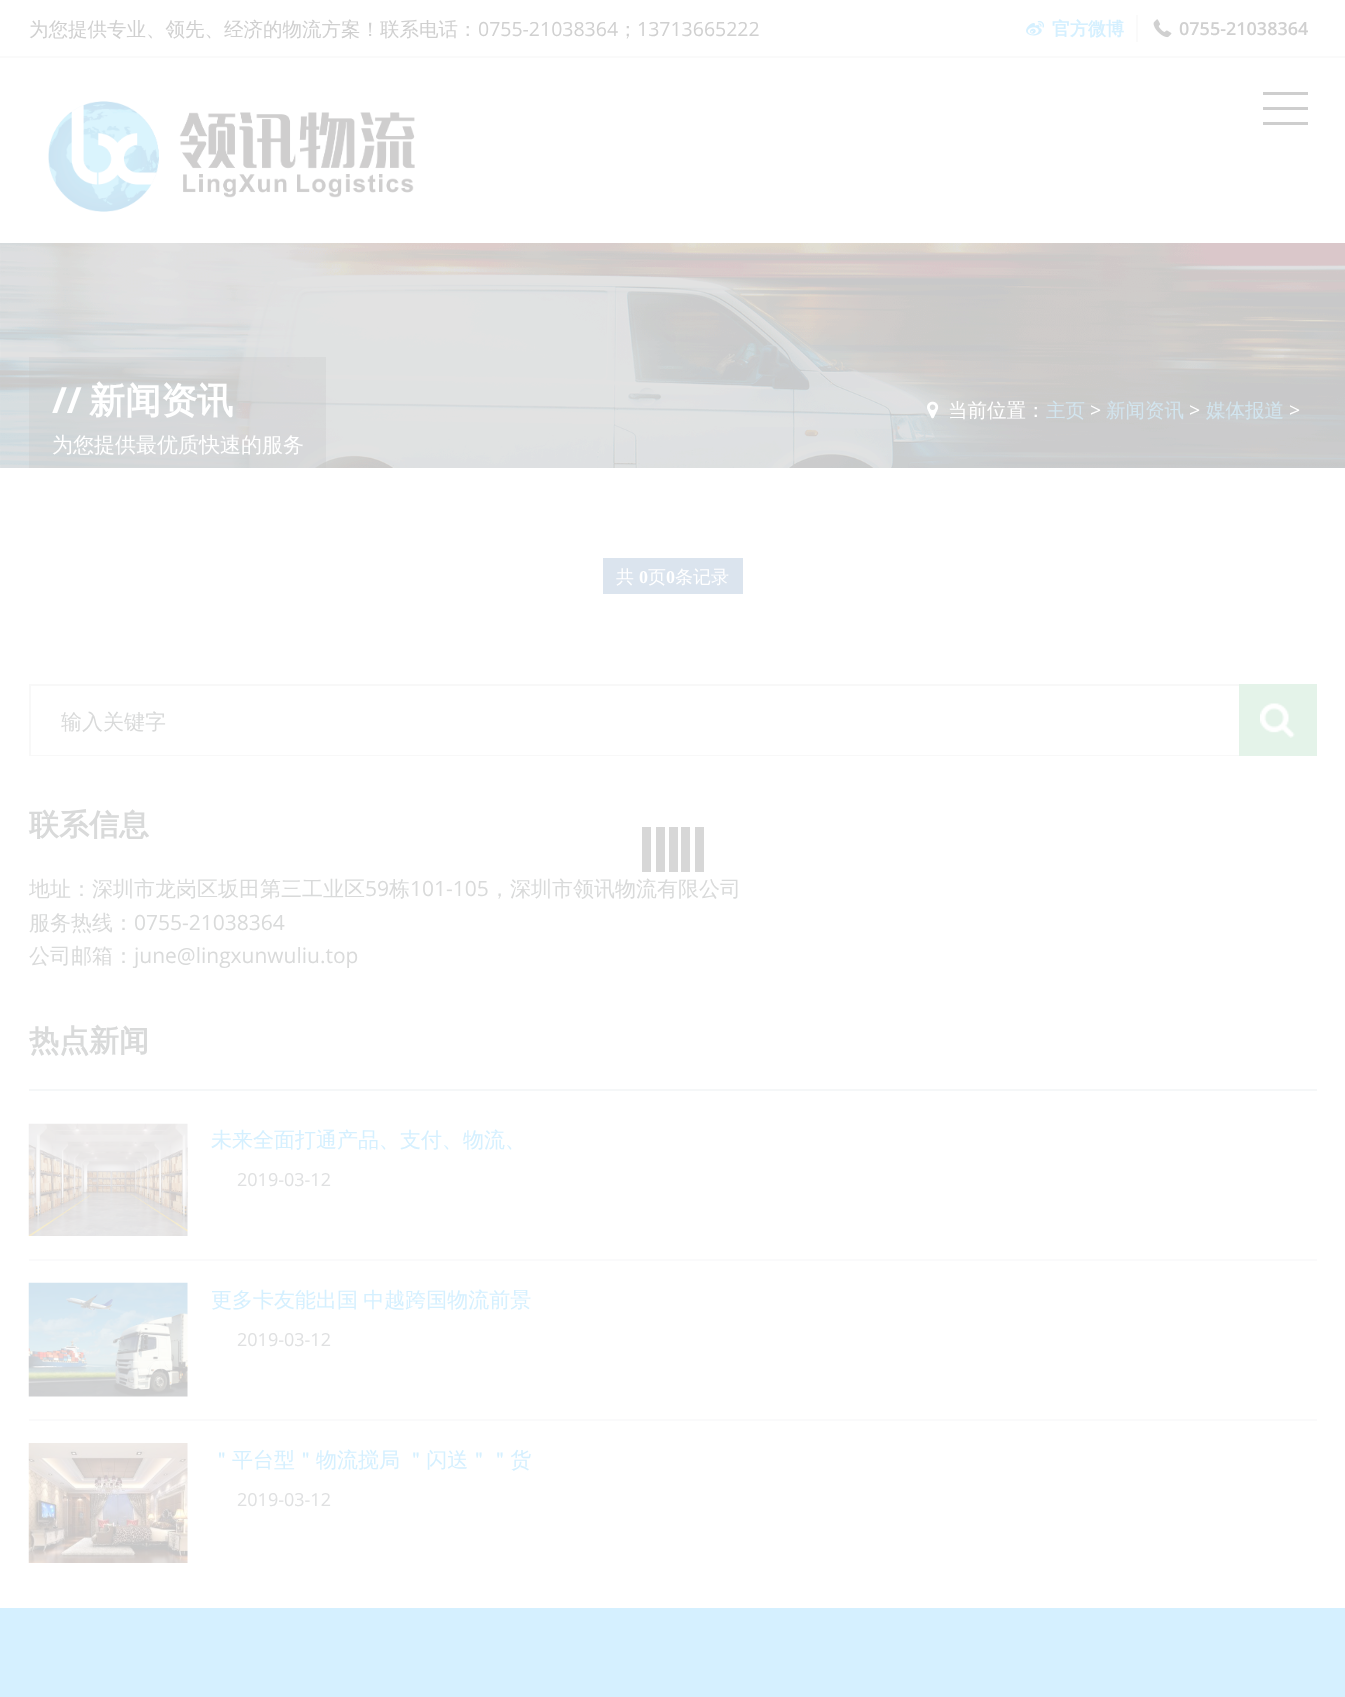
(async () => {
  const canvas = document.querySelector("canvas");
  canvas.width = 1345;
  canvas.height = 1697;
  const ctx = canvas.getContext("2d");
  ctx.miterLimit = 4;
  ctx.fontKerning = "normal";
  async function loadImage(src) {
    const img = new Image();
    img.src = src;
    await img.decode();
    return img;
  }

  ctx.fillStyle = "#ffffff";
  ctx.fillRect(0, 0, 1345, 1697);
  ctx.fillStyle = "#fafafa";
  ctx.fillRect(0, 56, 1345, 2);
  ctx.drawImage(await loadImage("img/1.png"), 1026, 20, 18, 16);
  ctx.fillRect(1136, 15, 2, 27);
  ctx.drawImage(await loadImage("img/2.png"), 1153, 19, 19, 19);
  ctx.drawImage(await loadImage("img/3.png"), 48, 101, 367, 111);
  for (const [x, y, w, h, color] of [
    [1263, 107, 45, 3, "#cecece"],
    [1263, 92, 45, 3, "#cecece"],
    [1263, 122, 45, 3, "#cecece"],
  ]) {
    ctx.fillStyle = color;
    ctx.fillRect(x, y, w, h);
  }
  ctx.drawImage(await loadImage("img/4.png"), 0, 243, 1345, 225);
  ctx.fillStyle = "rgba(199, 199, 199, 0.3)";
  ctx.fillRect(29, 357, 297, 111);
  ctx.drawImage(await loadImage("img/5.png"), 927, 401, 12, 18);
  for (const [x, y, w, h, color] of [
    [603, 558, 140, 36, "#dbe4ee"],
    [29, 684, 1210, 2, "#f8f8f8"],
    [29, 755, 1210, 1, "#f8f8f8"],
    [29, 684, 2, 72, "#f8f8f8"],
    [1239, 684, 78, 72, "#e4f3e9"],
  ]) {
    ctx.fillStyle = color;
    ctx.fillRect(x, y, w, h);
  }
  ctx.drawImage(await loadImage("img/6.png"), 1260, 703, 35, 35);
  ctx.fillStyle = "#f5f7f8";
  ctx.fillRect(29, 1089, 1288, 2);
  ctx.fillStyle = "#fafafb";
  ctx.fillRect(29, 1259, 1288, 2);
  ctx.drawImage(await loadImage("img/7.png"), 28, 1123, 160, 113);
  ctx.fillRect(29, 1419, 1288, 2);
  ctx.drawImage(await loadImage("img/8.png"), 28, 1282, 160, 115);
  ctx.drawImage(await loadImage("img/9.png"), 28, 1443, 160, 120);
  for (const [x, y, w, h, color] of [
    [0, 1608, 1345, 89, "#d5f0ff"],
    [642, 827, 9, 45, "#d7d7d7"],
    [656, 827, 9, 45, "#d7d7d7"],
    [669, 827, 9, 45, "#d7d7d7"],
    [681, 827, 9, 45, "#d7d7d7"],
    [695, 827, 9, 45, "#d7d7d7"],
  ]) {
    ctx.fillStyle = color;
    ctx.fillRect(x, y, w, h);
  }
  ctx.font = "500 19.5px WenQuanYi Zen Hei";
  ctx.fillStyle = "#d0d0d0";
  ctx.fillText("为您提供专业、领先、经济的物流方案！联系电话：", 29, 36);
  ctx.font = "19.5px Open Sans";
  ctx.fillText("0755-21038364", 478, 36);
  ctx.font = "500 19.5px WenQuanYi Zen Hei";
  ctx.fillText("；", 618, 36);
  ctx.font = "19.5px Open Sans";
  ctx.fillText("13713665222", 637, 36);
  ctx.font = "bold 18px WenQuanYi Zen Hei";
  ctx.fillStyle = "#d5f0ff";
  ctx.fillText("官方微博", 1052, 35);
  ctx.font = "600 18px Open Sans";
  ctx.fillStyle = "#d0d0d0";
  ctx.fillText("0755-21038364", 1179, 35);
  ctx.font = "bold 36px Open Sans";
  ctx.fillStyle = "#ffffff";
  ctx.fillText("//", 52, 413);
  ctx.font = "bold 36px WenQuanYi Zen Hei";
  ctx.fillText("新闻资讯", 89, 413);
  ctx.font = "500 21px WenQuanYi Zen Hei";
  ctx.fillText("为您提供最优质快速的服务", 52, 452);
  ctx.font = "500 19.5px WenQuanYi Zen Hei";
  ctx.fillText("当前位置：", 948, 417);
  ctx.fillStyle = "#d2e5ef";
  ctx.fillText("主页", 1046, 417);
  ctx.font = "19.5px Open Sans";
  ctx.fillStyle = "#ffffff";
  ctx.fillText(">", 1090, 417);
  ctx.font = "500 19.5px WenQuanYi Zen Hei";
  ctx.fillStyle = "#d2e5ef";
  ctx.fillText("新闻资讯", 1106, 417);
  ctx.font = "19.5px Open Sans";
  ctx.fillStyle = "#ffffff";
  ctx.fillText(">", 1189, 417);
  ctx.font = "500 19.5px WenQuanYi Zen Hei";
  ctx.fillStyle = "#d2e5ef";
  ctx.fillText("媒体报道", 1206, 417);
  ctx.font = "19.5px Open Sans";
  ctx.fillStyle = "#ffffff";
  ctx.fillText(">", 1289, 417);
  ctx.font = "500 18px WenQuanYi Zen Hei";
  ctx.fillText("共", 616, 583);
  ctx.font = "bold 18px Liberation Serif";
  ctx.fillText("0", 639, 583);
  ctx.font = "500 18px WenQuanYi Zen Hei";
  ctx.fillText("页", 648, 583);
  ctx.font = "bold 18px Liberation Serif";
  ctx.fillText("0", 666, 583);
  ctx.font = "500 18px WenQuanYi Zen Hei";
  ctx.fillText("条记录", 675, 583);
  ctx.font = "500 21px WenQuanYi Zen Hei";
  ctx.fillStyle = "#d9dada";
  ctx.fillText("输入关键字", 61, 729);
  ctx.font = "bold 30px WenQuanYi Zen Hei";
  ctx.fillText("联系信息", 29, 835);
  ctx.font = "500 21px WenQuanYi Zen Hei";
  ctx.fillText("地址：深圳市龙岗区坂田第三工业区", 29, 896);
  ctx.font = "21px Open Sans";
  ctx.fillText("59", 365, 896);
  ctx.font = "500 21px WenQuanYi Zen Hei";
  ctx.fillText("栋", 389, 896);
  ctx.font = "21px Open Sans";
  ctx.fillText("101-105", 410, 896);
  ctx.font = "500 21px WenQuanYi Zen Hei";
  ctx.fillText("，深圳市领讯物流有限公司", 489, 896);
  ctx.fillText("服务热线：", 29, 930);
  ctx.font = "21px Open Sans";
  ctx.fillText("0755-21038364", 134, 930);
  ctx.font = "500 21px WenQuanYi Zen Hei";
  ctx.fillText("公司邮箱：", 29, 963);
  ctx.font = "21px Open Sans";
  ctx.fillText("june@lingxunwuliu.top", 134, 963);
  ctx.font = "bold 30px WenQuanYi Zen Hei";
  ctx.fillText("热点新闻", 29, 1051);
  ctx.font = "500 21px WenQuanYi Zen Hei";
  ctx.fillStyle = "#d5f0ff";
  ctx.fillText("未来全面打通产品、支付、物流、", 211, 1147);
  ctx.font = "18px Open Sans";
  ctx.fillStyle = "#dfe0e1";
  ctx.fillText("2019-03-12", 237, 1186);
  ctx.wordSpacing = "-1px";
  ctx.font = "500 21px WenQuanYi Zen Hei";
  ctx.fillStyle = "#d5f0ff";
  ctx.fillText("更多卡友能出国 中越跨国物流前景", 211, 1307);
  ctx.wordSpacing = "0px";
  ctx.font = "18px Open Sans";
  ctx.fillStyle = "#dfe0e1";
  ctx.fillText("2019-03-12", 237, 1346);
  ctx.wordSpacing = "-1px";
  ctx.font = "500 21px WenQuanYi Zen Hei";
  ctx.fillStyle = "#d5f0ff";
  ctx.fillText("＂平台型＂物流搅局 ＂闪送＂＂货", 211, 1467);
  ctx.wordSpacing = "0px";
  ctx.font = "18px Open Sans";
  ctx.fillStyle = "#dfe0e1";
  ctx.fillText("2019-03-12", 237, 1506);
})();
